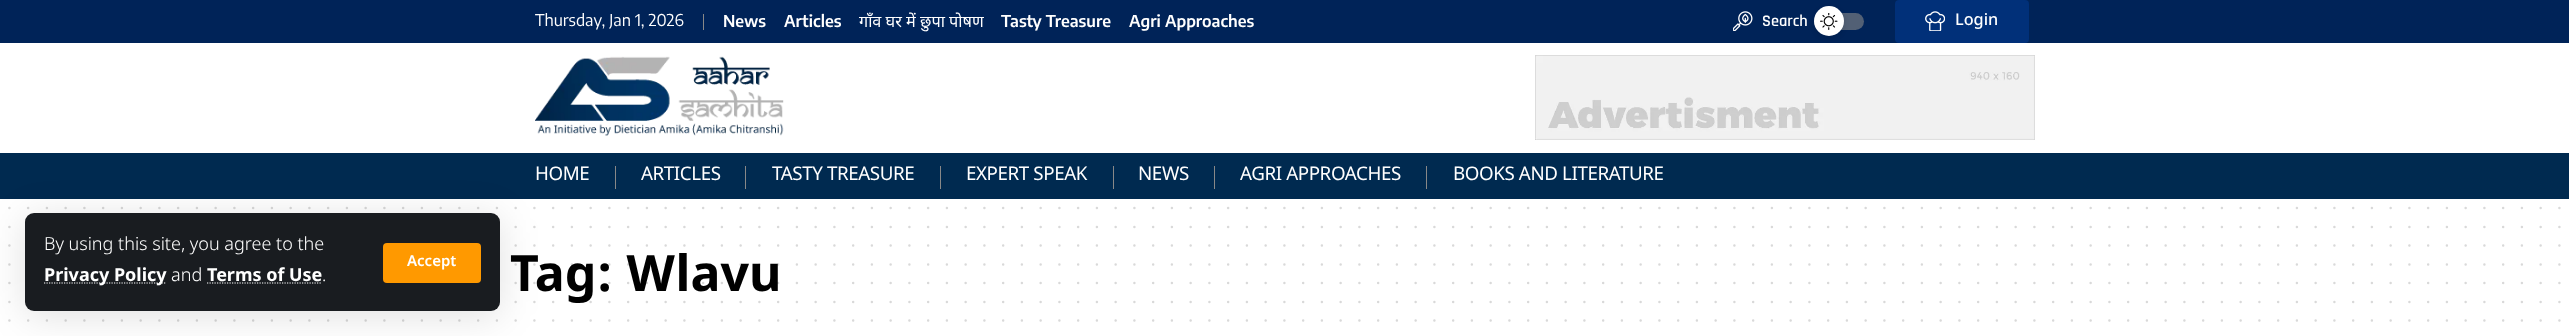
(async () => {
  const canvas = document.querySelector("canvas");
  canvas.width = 2569;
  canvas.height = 336;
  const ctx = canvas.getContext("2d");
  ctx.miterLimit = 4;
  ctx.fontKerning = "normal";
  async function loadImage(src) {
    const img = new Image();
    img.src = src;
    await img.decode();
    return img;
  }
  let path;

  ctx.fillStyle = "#ffffff";
  ctx.fillRect(0, 0, 2569, 336);
  ctx.fillStyle = "#002358";
  ctx.fillRect(0, 0, 2569, 43);
  ctx.fillStyle = "#888888";
  ctx.fillRect(703, 14, 1, 16);
  ctx.drawImage(await loadImage("img/1.png"), 1733, 11, 20, 20);
  ctx.fillStyle = "#526075";
  ctx.beginPath();
  ctx.roundRect(1814, 13, 50, 17, 8.5);
  ctx.fill();
  ctx.fillStyle = "rgba(0, 0, 0, 0.12)";
  ctx.filter = "blur(2.5px)";
  ctx.beginPath();
  ctx.roundRect(1814, 8, 30, 30, 15);
  ctx.fill();
  ctx.filter = "none";
  ctx.fillStyle = "#ffffff";
  ctx.beginPath();
  ctx.arc(1829, 21, 15, 0, Math.PI * 2);
  ctx.fill();
  ctx.drawImage(await loadImage("img/2.png"), 1820, 13, 18, 17);
  ctx.fillStyle = "#013079";
  ctx.beginPath();
  ctx.roundRect(1895, 0, 134, 43, 4);
  ctx.fill();
  ctx.drawImage(await loadImage("img/3.png"), 1925, 11, 20, 20);
  ctx.drawImage(await loadImage("img/4.png"), 535, 56, 249, 80);
  ctx.drawImage(await loadImage("img/5.png"), 1535, 55, 500, 85);
  for (const [x, y, w, h, color] of [
    [0, 153, 2569, 46, "#002a50"],
    [615, 166, 1, 23, "#888888"],
    [745, 166, 1, 23, "#888888"],
    [940, 166, 1, 23, "#888888"],
    [1113, 166, 1, 23, "#888888"],
    [1214, 166, 1, 23, "#888888"],
    [1426, 166, 1, 23, "#888888"],
  ]) {
    ctx.fillStyle = color;
    ctx.fillRect(x, y, w, h);
  }
  path = new Path2D("M9.4 208.1H2559.6");
  ctx.strokeStyle = "#d9d9d9";
  ctx.lineWidth = 2.5;
  ctx.lineCap = "round";
  ctx.setLineDash([0, 18.75]);
  ctx.stroke(path);
  path = new Path2D("M9.4 226.9H2559.6");
  ctx.stroke(path);
  path = new Path2D("M9.4 245.6H2559.6");
  ctx.stroke(path);
  path = new Path2D("M9.4 320.6H2559.6");
  ctx.stroke(path);
  ctx.font = "16.25px Encode Sans Condensed";
  ctx.fillStyle = "#ffffff";
  ctx.fillText("Thursday, Jan 1, 2026", 535, 26);
  ctx.font = "600 16.25px Encode Sans Condensed";
  ctx.fillText("News", 723, 27);
  ctx.fillText("Articles", 784, 27);
  ctx.font = "16.25px Noto Sans";
  ctx.fillText("गाँव घर में छुपा पोषण", 859, 27);
  ctx.font = "600 16.25px Encode Sans Condensed";
  ctx.fillText("Tasty Treasure", 1001, 27);
  ctx.fillText("Agri Approaches", 1129, 27);
  ctx.font = "600 16.25px Rajdhani";
  ctx.fillText("Search", 1762, 26);
  ctx.font = "500 16.25px Noto Sans Devanagari";
  ctx.fillText("Login", 1955, 25);
  ctx.letterSpacing = "-0.4px";
  ctx.font = "18.75px Noto Sans Devanagari";
  for (const [text, x, y] of [
    ["HOME", 535, 180],
    ["ARTICLES", 641, 180],
    ["TASTY TREASURE", 772, 180],
    ["EXPERT SPEAK", 966, 180],
    ["NEWS", 1138, 180],
    ["AGRI APPROACHES", 1240, 180],
    ["BOOKS AND LITERATURE", 1453, 180],
  ]) {
    ctx.fillText(text, x, y);
  }
  ctx.letterSpacing = "0px";
  ctx.font = "bold 50px Noto Sans Devanagari";
  ctx.fillStyle = "#000000";
  ctx.fillText("Tag: Wlavu", 510, 291);
  path = new Path2D("M9.4 301.9H2559.6");
  ctx.strokeStyle = "rgba(0, 0, 0, 0.15)";
  ctx.stroke(path);
  path = new Path2D("M9.4 283.1H2559.6");
  ctx.stroke(path);
  path = new Path2D("M9.4 264.4H2559.6");
  ctx.stroke(path);
  ctx.fillStyle = "rgba(0, 0, 0, 0.12)";
  ctx.filter = "blur(19px)";
  ctx.beginPath();
  ctx.roundRect(25, 218, 475, 98, 9);
  ctx.fill();
  ctx.filter = "none";
  ctx.fillStyle = "#191c20";
  ctx.beginPath();
  ctx.roundRect(25, 213, 475, 98, 9);
  ctx.fill();
  ctx.fillStyle = "#ff9900";
  ctx.beginPath();
  ctx.roundRect(383, 243, 98, 40, 4);
  ctx.fill();
  ctx.font = "600 15px Noto Sans Devanagari";
  ctx.fillStyle = "#ffffff";
  ctx.fillText("Accept", 407, 266);
  ctx.font = "300 18px Noto Sans Devanagari";
  ctx.fillText(".", 322, 281);
  ctx.font = "bold 18px Noto Sans Devanagari";
  ctx.fillText("Terms of Use", 207, 281);
  path = new Path2D("M207 283H322");
  ctx.strokeStyle = "#ffffff";
  ctx.lineWidth = 1.2;
  ctx.lineCap = "butt";
  ctx.setLineDash([1.25, 1.25]);
  ctx.stroke(path);
  ctx.font = "300 18px Noto Sans Devanagari";
  ctx.fillText("and", 171, 281);
  path = new Path2D("M44 283H166.5");
  ctx.stroke(path);
  ctx.font = "bold 18px Noto Sans Devanagari";
  ctx.fillText("Privacy Policy", 44, 281);
  ctx.font = "300 18px Noto Sans Devanagari";
  ctx.fillText("By using this site, you agree to the", 44, 250);
})();
